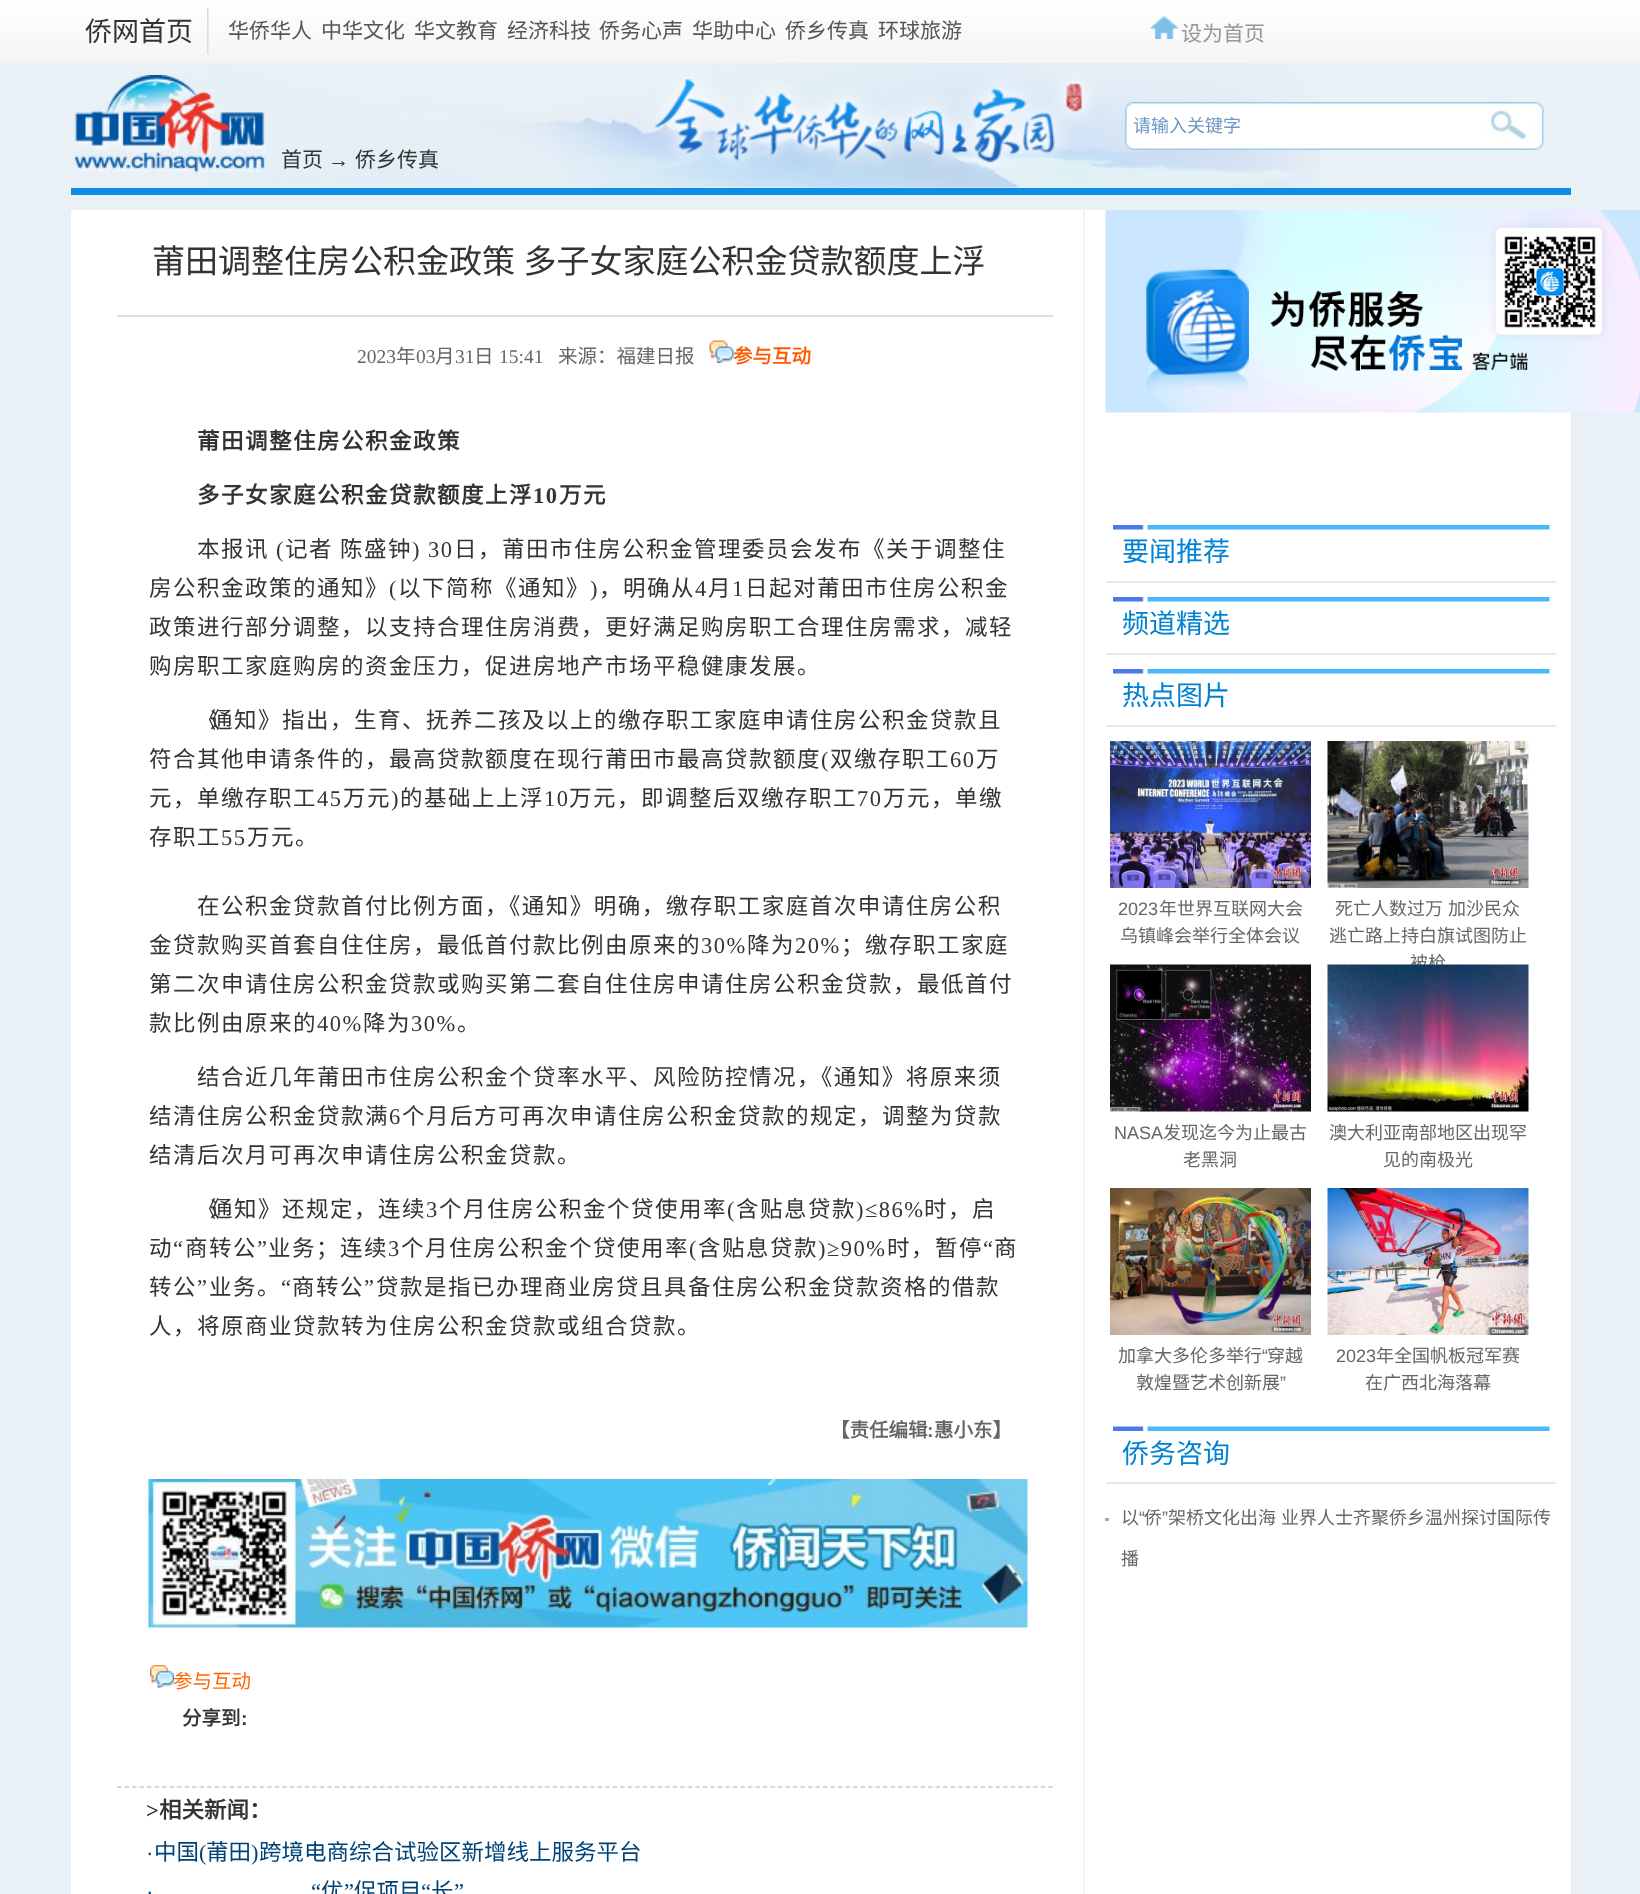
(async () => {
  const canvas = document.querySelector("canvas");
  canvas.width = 1640;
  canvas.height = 1894;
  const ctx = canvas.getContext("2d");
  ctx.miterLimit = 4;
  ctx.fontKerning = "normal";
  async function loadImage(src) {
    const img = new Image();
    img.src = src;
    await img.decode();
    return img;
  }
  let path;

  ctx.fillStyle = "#e9f1f6";
  ctx.fillRect(0, 0, 1640, 1894);
  ctx.drawImage(await loadImage("img/1.png"), 0, 0, 1640, 63);
  ctx.drawImage(await loadImage("img/2.png"), 207, 7, 2, 47);
  ctx.drawImage(await loadImage("img/3.png"), 1150, 16, 29, 23);
  ctx.drawImage(await loadImage("img/4.png"), 208, 63, 1113, 125);
  ctx.fillStyle = "#0d8de7";
  ctx.fillRect(71, 188, 1500, 7);
  ctx.drawImage(await loadImage("img/5.png"), 74, 75, 192, 98);
  ctx.drawImage(await loadImage("img/6.png"), 1125, 102, 360, 48);
  ctx.drawImage(await loadImage("img/7.png"), 1485, 102, 59, 48);
  for (const [x, y, w, h, color] of [
    [71, 210, 1500, 1684, "#ffffff"],
    [1083, 210, 2, 1684, "#f1f5f6"],
    [117, 315, 936, 2, "#dddddd"],
  ]) {
    ctx.fillStyle = color;
    ctx.fillRect(x, y, w, h);
  }
  ctx.drawImage(await loadImage("img/8.png"), 709, 340, 25, 23);
  ctx.drawImage(await loadImage("img/9.png"), 148, 1479, 880, 149);
  ctx.drawImage(await loadImage("img/10.png"), 150, 1665, 24, 23);
  path = new Path2D("M117 1787H1053");
  ctx.strokeStyle = "#cccccc";
  ctx.lineWidth = 1.5;
  ctx.setLineDash([4.5, 3.01]);
  ctx.stroke(path);
  ctx.drawImage(await loadImage("img/11.png"), 1105, 210, 535, 203);
  ctx.drawImage(await loadImage("img/12.png"), 1113, 525, 437, 5);
  ctx.fillStyle = "#e8e8e8";
  ctx.fillRect(1106, 581, 450, 2);
  ctx.drawImage(await loadImage("img/12.png"), 1113, 597, 437, 5);
  ctx.fillRect(1106, 653, 450, 2);
  ctx.drawImage(await loadImage("img/12.png"), 1113, 669, 437, 5);
  ctx.fillRect(1106, 725, 450, 2);
  ctx.drawImage(await loadImage("img/13.png"), 1110, 741, 201, 147);
  ctx.drawImage(await loadImage("img/14.png"), 1327, 741, 202, 147);
  ctx.drawImage(await loadImage("img/15.png"), 1110, 964, 201, 148);
  ctx.drawImage(await loadImage("img/17.png"), 1110, 1188, 201, 147);
  ctx.drawImage(await loadImage("img/18.png"), 1327, 1188, 202, 147);
  ctx.drawImage(await loadImage("img/19.png"), 1113, 1426, 437, 5);
  ctx.fillRect(1106, 1482, 450, 2);
  ctx.fillStyle = "#acacac";
  ctx.fillRect(1105, 1518, 4, 3);
  ctx.font = "27px Noto Sans CJK SC";
  ctx.fillStyle = "#333333";
  ctx.fillText("侨网首页", 85, 41);
  ctx.font = "21px Noto Sans CJK SC";
  ctx.fillStyle = "#555555";
  for (const [text, x, y] of [
    ["华侨华人", 228, 38],
    ["中华文化", 321, 38],
    ["华文教育", 414, 38],
    ["经济科技", 507, 38],
    ["侨务心声", 599, 38],
    ["华助中心", 692, 38],
    ["侨乡传真", 785, 38],
    ["环球旅游", 878, 38],
  ]) {
    ctx.fillText(text, x, y);
  }
  ctx.fillStyle = "#969696";
  ctx.fillText("设为首页", 1181, 41);
  ctx.font = "18px Noto Sans CJK SC";
  ctx.fillStyle = "#6d97c3";
  ctx.fillText("请输入关键字", 1133, 132);
  ctx.font = "21px Noto Sans CJK SC";
  ctx.fillStyle = "#333333";
  ctx.fillText("首页", 281, 167);
  ctx.font = "21px Liberation Sans";
  ctx.fillText("→", 328, 167);
  ctx.font = "21px Noto Sans CJK SC";
  ctx.fillText("侨乡传真", 355, 167);
  ctx.wordSpacing = "1px";
  ctx.font = "33px Noto Sans CJK SC";
  ctx.fillText("莆田调整住房公积金政策 多子女家庭公积金贷款额度上浮", 152, 273);
  ctx.wordSpacing = "0px";
  ctx.font = "19.5px Liberation Serif";
  ctx.fillStyle = "#666666";
  ctx.fillText("2023", 357, 363);
  ctx.font = "19.5px Noto Sans CJK SC";
  ctx.fillText("年", 396, 363);
  ctx.font = "19.5px Liberation Serif";
  ctx.fillText("03", 416, 363);
  ctx.font = "19.5px Noto Sans CJK SC";
  ctx.fillText("月", 435, 363);
  ctx.font = "19.5px Liberation Serif";
  ctx.fillText("31", 455, 363);
  ctx.font = "19.5px Noto Sans CJK SC";
  ctx.fillText("日", 474, 363);
  ctx.font = "19.5px Liberation Serif";
  ctx.fillText("15:41", 499, 363);
  ctx.font = "19.5px Noto Sans CJK SC";
  ctx.fillText("来源：福建日报", 558, 363);
  ctx.font = "bold 19.5px Noto Sans CJK SC";
  ctx.fillStyle = "#ff5a00";
  ctx.fillText("参与互动", 733, 363);
  ctx.letterSpacing = "1.5px";
  ctx.font = "bold 22.5px Noto Sans CJK SC";
  ctx.fillStyle = "#333333";
  ctx.fillText("莆田调整住房公积金政策", 197, 449);
  ctx.fillText("多子女家庭公积金贷款额度上浮", 197, 503);
  ctx.font = "bold 22.5px Liberation Serif";
  ctx.fillText("10", 533, 503);
  ctx.font = "bold 22.5px Noto Sans CJK SC";
  ctx.fillText("万元", 559, 503);
  ctx.font = "22.5px Noto Sans CJK SC";
  ctx.fillText("本报讯", 197, 557);
  ctx.font = "22.5px Liberation Serif";
  ctx.fillText("(", 276, 557);
  ctx.font = "22.5px Noto Sans CJK SC";
  ctx.fillText("记者", 285, 557);
  ctx.fillText("陈盛钟", 340, 557);
  ctx.font = "22.5px Liberation Serif";
  ctx.fillText(") 30", 412, 557);
  ctx.font = "22.5px Noto Sans CJK SC";
  ctx.fillText("日，莆田市住房公积金管理委员会发布《关于调整住", 454, 557);
  ctx.fillText("房公积金政策的通知》", 149, 596);
  ctx.font = "22.5px Liberation Serif";
  ctx.fillText("(", 389, 596);
  ctx.font = "22.5px Noto Sans CJK SC";
  ctx.fillText("以下简称《通知》", 398, 596);
  ctx.font = "22.5px Liberation Serif";
  ctx.fillText(")", 590, 596);
  ctx.font = "22.5px Noto Sans CJK SC";
  ctx.fillText("，明确从", 599, 596);
  ctx.font = "22.5px Liberation Serif";
  ctx.fillText("4", 695, 596);
  ctx.font = "22.5px Noto Sans CJK SC";
  ctx.fillText("月", 708, 596);
  ctx.font = "22.5px Liberation Serif";
  ctx.fillText("1", 732, 596);
  ctx.font = "22.5px Noto Sans CJK SC";
  for (const [text, x, y] of [
    ["日起对莆田市住房公积金", 745, 596],
    ["政策进行部分调整，以支持合理住房消费，更好满足购房职工合理住房需求，减轻", 149, 635],
    ["购房职工家庭购房的资金压力，促进房地产市场平稳健康发展。", 149, 674],
    ["《", 197, 728],
    ["通知》指出，生育、抚养二孩及以上的缴存职工家庭申请住房公积金贷款且", 210, 728],
    ["符合其他申请条件的，最高贷款额度在现行莆田市最高贷款额度", 149, 767],
  ]) {
    ctx.fillText(text, x, y);
  }
  ctx.font = "22.5px Liberation Serif";
  ctx.fillText("(", 821, 767);
  ctx.font = "22.5px Noto Sans CJK SC";
  ctx.fillText("双缴存职工", 830, 767);
  ctx.font = "22.5px Liberation Serif";
  ctx.fillText("60", 950, 767);
  ctx.font = "22.5px Noto Sans CJK SC";
  ctx.fillText("万", 976, 767);
  ctx.fillText("元，单缴存职工", 149, 806);
  ctx.font = "22.5px Liberation Serif";
  ctx.fillText("45", 317, 806);
  ctx.font = "22.5px Noto Sans CJK SC";
  ctx.fillText("万元", 343, 806);
  ctx.font = "22.5px Liberation Serif";
  ctx.fillText(")", 391, 806);
  ctx.font = "22.5px Noto Sans CJK SC";
  ctx.fillText("的基础上上浮", 400, 806);
  ctx.font = "22.5px Liberation Serif";
  ctx.fillText("10", 544, 806);
  ctx.font = "22.5px Noto Sans CJK SC";
  ctx.fillText("万元，即调整后双缴存职工", 569, 806);
  ctx.font = "22.5px Liberation Serif";
  ctx.fillText("70", 857, 806);
  ctx.font = "22.5px Noto Sans CJK SC";
  ctx.fillText("万元，单缴", 883, 806);
  ctx.fillText("存职工", 149, 845);
  ctx.font = "22.5px Liberation Serif";
  ctx.fillText("55", 221, 845);
  ctx.font = "22.5px Noto Sans CJK SC";
  for (const [text, x, y] of [
    ["万元。", 247, 845],
    ["在公积金贷款首付比例方面，《通知》明确，缴存职工家庭首次申请住房公积", 197, 914],
    ["金贷款购买首套自住住房，最低首付款比例由原来的", 149, 953],
  ]) {
    ctx.fillText(text, x, y);
  }
  ctx.font = "22.5px Liberation Serif";
  ctx.fillText("30%", 701, 953);
  ctx.font = "22.5px Noto Sans CJK SC";
  ctx.fillText("降为", 747, 953);
  ctx.font = "22.5px Liberation Serif";
  ctx.fillText("20%", 795, 953);
  ctx.font = "22.5px Noto Sans CJK SC";
  for (const [text, x, y] of [
    ["；缴存职工家庭", 841, 953],
    ["第二次申请住房公积金贷款或购买第二套自住住房申请住房公积金贷款，最低首付", 149, 992],
    ["款比例由原来的", 149, 1031],
  ]) {
    ctx.fillText(text, x, y);
  }
  ctx.font = "22.5px Liberation Serif";
  ctx.fillText("40%", 317, 1031);
  ctx.font = "22.5px Noto Sans CJK SC";
  ctx.fillText("降为", 363, 1031);
  ctx.font = "22.5px Liberation Serif";
  ctx.fillText("30%", 411, 1031);
  ctx.font = "22.5px Noto Sans CJK SC";
  for (const [text, x, y] of [
    ["。", 457, 1031],
    ["结合近几年莆田市住房公积金个贷率水平、风险防控情况，《通知》将原来须", 197, 1085],
    ["结清住房公积金贷款满", 149, 1124],
  ]) {
    ctx.fillText(text, x, y);
  }
  ctx.font = "22.5px Liberation Serif";
  ctx.fillText("6", 389, 1124);
  ctx.font = "22.5px Noto Sans CJK SC";
  for (const [text, x, y] of [
    ["个月后方可再次申请住房公积金贷款的规定，调整为贷款", 402, 1124],
    ["结清后次月可再次申请住房公积金贷款。", 149, 1163],
    ["《", 197, 1217],
    ["通知》还规定，连续", 210, 1217],
  ]) {
    ctx.fillText(text, x, y);
  }
  ctx.font = "22.5px Liberation Serif";
  ctx.fillText("3", 426, 1217);
  ctx.font = "22.5px Noto Sans CJK SC";
  ctx.fillText("个月住房公积金个贷使用率", 439, 1217);
  ctx.font = "22.5px Liberation Serif";
  ctx.fillText("(", 727, 1217);
  ctx.font = "22.5px Noto Sans CJK SC";
  ctx.fillText("含贴息贷款", 736, 1217);
  ctx.font = "22.5px Liberation Serif";
  ctx.fillText(")≤86%", 856, 1217);
  ctx.font = "22.5px Noto Sans CJK SC";
  ctx.fillText("时，启", 924, 1217);
  ctx.fillText("动", 149, 1256);
  ctx.font = "22.5px Liberation Serif";
  ctx.fillText("“", 173, 1256);
  ctx.font = "22.5px Noto Sans CJK SC";
  ctx.fillText("商转公", 185, 1256);
  ctx.font = "22.5px Liberation Serif";
  ctx.fillText("”", 257, 1256);
  ctx.font = "22.5px Noto Sans CJK SC";
  ctx.fillText("业务；连续", 268, 1256);
  ctx.font = "22.5px Liberation Serif";
  ctx.fillText("3", 388, 1256);
  ctx.font = "22.5px Noto Sans CJK SC";
  ctx.fillText("个月住房公积金个贷使用率", 401, 1256);
  ctx.font = "22.5px Liberation Serif";
  ctx.fillText("(", 689, 1256);
  ctx.font = "22.5px Noto Sans CJK SC";
  ctx.fillText("含贴息贷款", 698, 1256);
  ctx.font = "22.5px Liberation Serif";
  ctx.fillText(")≥90%", 818, 1256);
  ctx.font = "22.5px Noto Sans CJK SC";
  ctx.fillText("时，暂停", 887, 1256);
  ctx.font = "22.5px Liberation Serif";
  ctx.fillText("“", 983, 1256);
  ctx.font = "22.5px Noto Sans CJK SC";
  ctx.fillText("商", 994, 1256);
  ctx.fillText("转公", 149, 1295);
  ctx.font = "22.5px Liberation Serif";
  ctx.fillText("”", 197, 1295);
  ctx.font = "22.5px Noto Sans CJK SC";
  ctx.fillText("业务。", 209, 1295);
  ctx.font = "22.5px Liberation Serif";
  ctx.fillText("“", 281, 1295);
  ctx.font = "22.5px Noto Sans CJK SC";
  ctx.fillText("商转公", 292, 1295);
  ctx.font = "22.5px Liberation Serif";
  ctx.fillText("”", 364, 1295);
  ctx.font = "22.5px Noto Sans CJK SC";
  ctx.fillText("贷款是指已办理商业房贷且具备住房公积金贷款资格的借款", 376, 1295);
  ctx.fillText("人，将原商业贷款转为住房公积金贷款或组合贷款。", 149, 1334);
  ctx.letterSpacing = "0px";
  ctx.font = "bold 19.5px Noto Sans CJK SC";
  ctx.fillStyle = "#666666";
  ctx.fillText("【责任编辑", 830, 1437);
  ctx.font = "bold 19.5px Liberation Sans";
  ctx.fillText(":", 927, 1437);
  ctx.font = "bold 19.5px Noto Sans CJK SC";
  ctx.fillText("惠小东】", 934, 1437);
  ctx.font = "19.5px Noto Sans CJK SC";
  ctx.fillStyle = "#ff6600";
  ctx.fillText("参与互动", 173, 1688);
  ctx.font = "bold 19.5px Noto Sans CJK SC";
  ctx.fillStyle = "#333333";
  ctx.fillText("分享到", 182, 1725);
  ctx.font = "bold 19.5px Liberation Sans";
  ctx.fillText(":", 241, 1725);
  ctx.font = "bold 22.5px Liberation Serif";
  ctx.fillText(">", 146, 1818);
  ctx.font = "bold 22.5px Noto Sans CJK SC";
  ctx.fillText("相关新闻：", 159, 1818);
  ctx.font = "22.5px Liberation Sans";
  ctx.fillStyle = "#004276";
  ctx.fillText("·", 146, 1860);
  ctx.font = "22.5px Noto Sans CJK SC";
  ctx.fillText("中国", 154, 1860);
  ctx.font = "22.5px Liberation Serif";
  ctx.fillText("(", 199, 1860);
  ctx.font = "22.5px Noto Sans CJK SC";
  ctx.fillText("莆田", 206, 1860);
  ctx.font = "22.5px Liberation Serif";
  ctx.fillText(")", 251, 1860);
  ctx.font = "22.5px Noto Sans CJK SC";
  ctx.fillText("跨境电商综合试验区新增线上服务平台", 259, 1860);
  ctx.font = "22.5px Liberation Serif";
  ctx.fillText("“", 311, 1899);
  ctx.font = "22.5px Noto Sans CJK SC";
  ctx.fillText("优", 321, 1899);
  ctx.font = "22.5px Liberation Serif";
  ctx.fillText("”", 344, 1899);
  ctx.font = "22.5px Noto Sans CJK SC";
  ctx.fillText("促项目", 354, 1899);
  ctx.font = "22.5px Liberation Serif";
  ctx.fillText("“", 421, 1899);
  ctx.font = "22.5px Noto Sans CJK SC";
  ctx.fillText("长", 431, 1899);
  ctx.font = "22.5px Liberation Serif";
  ctx.fillText("”", 454, 1899);
  ctx.font = "22.5px Liberation Sans";
  ctx.fillText("·", 146, 1899);
  ctx.font = "27px Noto Sans CJK SC";
  ctx.fillStyle = "#0082d2";
  for (const [text, x, y] of [
    ["要闻推荐", 1122, 561],
    ["频道精选", 1122, 633],
    ["热点图片", 1122, 705],
  ]) {
    ctx.fillText(text, x, y);
  }
  ctx.font = "18px Liberation Sans";
  ctx.fillStyle = "#666666";
  ctx.fillText("2023", 1118, 915);
  ctx.font = "18px Noto Sans CJK SC";
  ctx.fillText("年世界互联网大会", 1159, 915);
  ctx.fillText("乌镇峰会举行全体会议", 1120, 942);
  ctx.wordSpacing = "1px";
  ctx.fillText("死亡人数过万 加沙民众", 1335, 915);
  ctx.wordSpacing = "0px";
  ctx.fillText("逃亡路上持白旗试图防止", 1329, 942);
  ctx.fillText("被枪", 1410, 969);
  ctx.font = "18px Liberation Sans";
  ctx.fillText("NASA", 1114, 1139);
  ctx.font = "18px Noto Sans CJK SC";
  ctx.fillText("发现迄今为止最古", 1163, 1139);
  ctx.fillText("老黑洞", 1183, 1166);
  ctx.drawImage(await loadImage("img/16.png"), 1327, 964, 202, 148);
  for (const [text, x, y] of [
    ["澳大利亚南部地区出现罕", 1329, 1139],
    ["见的南极光", 1383, 1166],
    ["加拿大多伦多举行", 1118, 1362],
  ]) {
    ctx.fillText(text, x, y);
  }
  ctx.font = "18px Liberation Sans";
  ctx.fillText("“", 1262, 1362);
  ctx.font = "18px Noto Sans CJK SC";
  ctx.fillText("穿越", 1267, 1362);
  ctx.fillText("敦煌暨艺术创新展", 1136, 1389);
  ctx.font = "18px Liberation Sans";
  ctx.fillText("”", 1280, 1389);
  ctx.fillText("2023", 1336, 1362);
  ctx.font = "18px Noto Sans CJK SC";
  ctx.fillText("年全国帆板冠军赛", 1376, 1362);
  ctx.fillText("在广西北海落幕", 1365, 1389);
  ctx.font = "27px Noto Sans CJK SC";
  ctx.fillStyle = "#0082d2";
  ctx.fillText("侨务咨询", 1122, 1463);
  ctx.font = "18px Noto Sans CJK SC";
  ctx.fillStyle = "#666666";
  ctx.fillText("以", 1121, 1524);
  ctx.font = "18px Liberation Sans";
  ctx.fillText("“", 1139, 1524);
  ctx.font = "18px Noto Sans CJK SC";
  ctx.fillText("侨", 1144, 1524);
  ctx.font = "18px Liberation Sans";
  ctx.fillText("”", 1162, 1524);
  ctx.wordSpacing = "1px";
  ctx.font = "18px Noto Sans CJK SC";
  ctx.fillText("架桥文化出海 业界人士齐聚侨乡温州探讨国际传", 1168, 1524);
  ctx.wordSpacing = "0px";
  ctx.fillText("播", 1121, 1565);
})();
